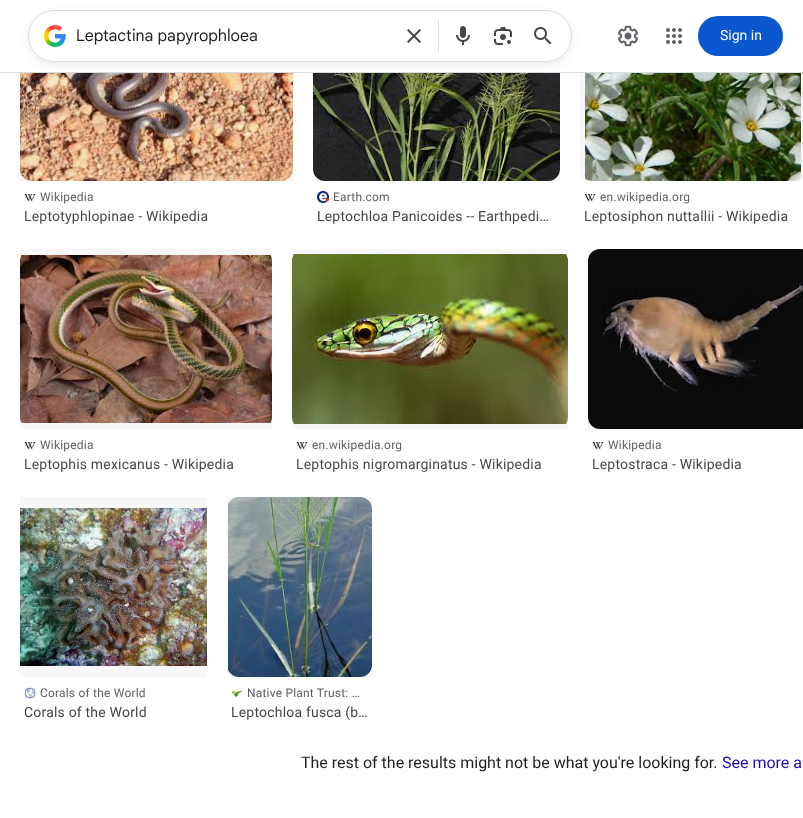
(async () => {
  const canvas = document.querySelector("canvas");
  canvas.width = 803;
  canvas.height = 818;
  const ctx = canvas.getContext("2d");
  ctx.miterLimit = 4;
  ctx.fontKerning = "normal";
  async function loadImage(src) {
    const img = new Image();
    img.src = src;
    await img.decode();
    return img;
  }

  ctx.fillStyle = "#ffffff";
  ctx.fillRect(0, 0, 803, 818);
  ctx.fillStyle = "#dadce0";
  ctx.fillRect(0, 72, 803, 1);
  ctx.drawImage(await loadImage("img/8.png"), 20, 73, 273, 108);
  ctx.fillStyle = "rgba(0, 0, 0, 0.03)";
  ctx.fillRect(20, 73, 273, 108);
  ctx.drawImage(await loadImage("img/10.png"), 313, 73, 247, 108);
  ctx.fillRect(313, 73, 247, 108);
  ctx.drawImage(await loadImage("img/12.png"), 585, 73, 216, 108);
  ctx.fillRect(580, 73, 223, 108);
  ctx.fillStyle = "rgba(31, 31, 31, 0.08)";
  ctx.filter = "blur(5px)";
  ctx.beginPath();
  ctx.roundRect(28, 13, 544, 52, 26);
  ctx.fill();
  ctx.filter = "none";
  ctx.fillStyle = "#ffffff";
  ctx.beginPath();
  ctx.roundRect(28.5, 10.5, 543, 51, 25.5);
  ctx.fill();
  ctx.strokeStyle = "#dadce0";
  ctx.stroke();
  ctx.drawImage(await loadImage("img/1.png"), 44, 25, 22, 22);
  ctx.drawImage(await loadImage("img/2.png"), 407, 29, 14, 14);
  ctx.fillStyle = "#dadce0";
  ctx.fillRect(438, 20, 1, 32);
  ctx.drawImage(await loadImage("img/3.png"), 456, 26, 14, 19);
  ctx.drawImage(await loadImage("img/4.png"), 494, 27, 18, 18);
  ctx.drawImage(await loadImage("img/5.png"), 534, 27, 18, 18);
  ctx.drawImage(await loadImage("img/6.png"), 618, 25, 20, 22);
  ctx.drawImage(await loadImage("img/7.png"), 666, 28, 16, 16);
  ctx.fillStyle = "#0b57d0";
  ctx.beginPath();
  ctx.roundRect(698, 16, 85, 40, 20);
  ctx.fill();
  ctx.drawImage(await loadImage("img/9.png"), 24, 194, 12, 8);
  ctx.drawImage(await loadImage("img/11.png"), 317, 191, 12, 12);
  ctx.drawImage(await loadImage("img/13.png"), 584, 194, 12, 8);
  ctx.drawImage(await loadImage("img/14.png"), 20, 255, 252, 168);
  ctx.fillStyle = "rgba(0, 0, 0, 0.03)";
  ctx.fillRect(20, 249, 252, 180);
  ctx.drawImage(await loadImage("img/9.png"), 24, 442, 12, 8);
  ctx.drawImage(await loadImage("img/15.png"), 292, 254, 276, 170);
  ctx.fillRect(292, 249, 276, 180);
  ctx.drawImage(await loadImage("img/9.png"), 296, 442, 12, 8);
  ctx.drawImage(await loadImage("img/16.png"), 588, 249, 215, 180);
  ctx.fillRect(588, 249, 215, 180);
  ctx.drawImage(await loadImage("img/9.png"), 592, 442, 12, 8);
  ctx.drawImage(await loadImage("img/17.png"), 20, 508, 187, 158);
  ctx.fillRect(20, 497, 187, 180);
  ctx.drawImage(await loadImage("img/18.png"), 24, 687, 12, 12);
  ctx.drawImage(await loadImage("img/19.png"), 228, 497, 144, 180);
  ctx.fillRect(227, 497, 145, 180);
  ctx.drawImage(await loadImage("img/20.png"), 231, 690, 12, 7);
  ctx.font = "16px Google Sans";
  ctx.fillStyle = "#1f1f1f";
  ctx.fillText("Leptactina papyrophloea", 76, 41);
  ctx.font = "14px Roboto";
  ctx.fillStyle = "#ffffff";
  ctx.fillText("Sign in", 720, 40);
  ctx.letterSpacing = "0.2px";
  ctx.font = "12px Roboto";
  ctx.fillStyle = "#5e5e5e";
  ctx.fillText("Wikipedia", 40, 201);
  ctx.font = "14px Roboto";
  ctx.fillStyle = "#474747";
  ctx.fillText("Leptotyphlopinae - Wikipedia", 24, 221);
  ctx.font = "12px Roboto";
  ctx.fillStyle = "#5e5e5e";
  ctx.fillText("Earth.com", 333, 201);
  ctx.font = "14px Roboto";
  ctx.fillStyle = "#474747";
  ctx.fillText("Leptochloa Panicoides -- Earthpedi…", 317, 221);
  ctx.font = "12px Roboto";
  ctx.fillStyle = "#5e5e5e";
  ctx.fillText("en.wikipedia.org", 600, 201);
  ctx.font = "14px Roboto";
  ctx.fillStyle = "#474747";
  ctx.fillText("Leptosiphon nuttallii - Wikipedia", 584, 221);
  ctx.font = "12px Roboto";
  ctx.fillStyle = "#5e5e5e";
  ctx.fillText("Wikipedia", 40, 449);
  ctx.font = "14px Roboto";
  ctx.fillStyle = "#474747";
  ctx.fillText("Leptophis mexicanus - Wikipedia", 24, 469);
  ctx.font = "12px Roboto";
  ctx.fillStyle = "#5e5e5e";
  ctx.fillText("en.wikipedia.org", 312, 449);
  ctx.font = "14px Roboto";
  ctx.fillStyle = "#474747";
  ctx.fillText("Leptophis nigromarginatus - Wikipedia", 296, 469);
  ctx.font = "12px Roboto";
  ctx.fillStyle = "#5e5e5e";
  ctx.fillText("Wikipedia", 608, 449);
  ctx.font = "14px Roboto";
  ctx.fillStyle = "#474747";
  ctx.fillText("Leptostraca - Wikipedia", 592, 469);
  ctx.font = "12px Roboto";
  ctx.fillStyle = "#5e5e5e";
  ctx.fillText("Corals of the World", 40, 697);
  ctx.font = "14px Roboto";
  ctx.fillStyle = "#474747";
  ctx.fillText("Corals of the World", 24, 717);
  ctx.font = "12px Roboto";
  ctx.fillStyle = "#5e5e5e";
  ctx.fillText("Native Plant Trust: …", 247, 697);
  ctx.font = "14px Roboto";
  ctx.fillStyle = "#474747";
  ctx.fillText("Leptochloa fusca (b…", 231, 717);
  ctx.letterSpacing = "0px";
  ctx.font = "16px Roboto";
  ctx.fillStyle = "#1f1f1f";
  ctx.fillText("The rest of the results might not be what you're looking for.", 301, 768);
  ctx.fillStyle = "#1a0dab";
  ctx.fillText("See more a", 722, 768);
})();
